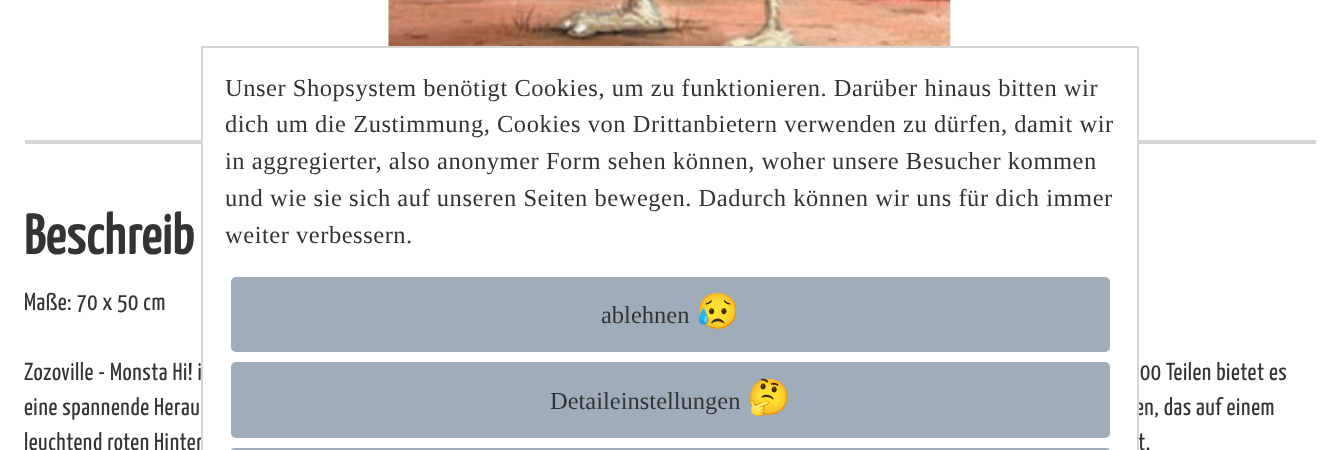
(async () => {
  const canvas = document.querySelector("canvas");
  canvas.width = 1340;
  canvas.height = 450;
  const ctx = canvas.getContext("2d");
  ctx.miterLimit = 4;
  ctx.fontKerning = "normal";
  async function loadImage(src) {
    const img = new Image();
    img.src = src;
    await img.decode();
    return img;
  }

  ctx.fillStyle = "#ffffff";
  ctx.fillRect(0, 0, 1340, 450);
  ctx.fillStyle = "#d6d6d6";
  ctx.fillRect(25, 140, 1291, 4);
  ctx.drawImage(await loadImage("img/1.png"), 388, 0, 563, 46);
  ctx.letterSpacing = "0.53px";
  ctx.font = "bold 56px Yanone Kaffeesatz";
  ctx.fillStyle = "#333333";
  ctx.fillText("Beschreib", 24, 254);
  ctx.font = "24.5px Yanone Kaffeesatz";
  for (const [text, x, y] of [
    ["Maße: 70 x 50 cm", 24, 310],
    ["Zozoville - Monsta Hi! i", 24, 380],
    ["00 Teilen bietet es", 1140, 380],
    ["eine spannende Herau", 24, 415],
    ["en, das auf einem", 1135, 415],
  ]) {
    ctx.fillText(text, x, y);
  }
  ctx.fillStyle = "#ffffff";
  ctx.fillRect(203, 140, 934, 274);
  ctx.fillStyle = "#333333";
  ctx.fillText("leuchtend roten Hinter", 24, 450);
  ctx.fillText("t.", 1138, 450);
  ctx.strokeStyle = "#d6d6d6";
  ctx.lineWidth = 2;
  ctx.strokeRect(202, 47, 936, 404);
  ctx.fillStyle = "#9fadba";
  ctx.beginPath();
  ctx.roundRect(231, 448, 879, 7, 5);
  ctx.fill();
  ctx.beginPath();
  ctx.roundRect(231, 362, 879, 76, 5);
  ctx.fill();
  ctx.letterSpacing = "0px";
  ctx.font = "35px Noto Color Emoji";
  ctx.fillStyle = "#333333";
  ctx.fillText("🤔", 747, 409);
  ctx.font = "24.5px Liberation Serif";
  ctx.fillText("Detaileinstellungen", 550, 409);
  ctx.fillStyle = "#9fadba";
  ctx.beginPath();
  ctx.roundRect(231, 277, 879, 75, 5);
  ctx.fill();
  ctx.font = "35px Noto Color Emoji";
  ctx.fillStyle = "#333333";
  ctx.fillText("😥", 696, 323);
  ctx.font = "24.5px Liberation Serif";
  ctx.fillText("ablehnen", 601, 323);
  ctx.letterSpacing = "0.53px";
  for (const [text, x, y] of [
    ["weiter verbessern.", 225, 243],
    ["und wie sie sich auf unseren Seiten bewegen. Dadurch können wir uns für dich immer", 225, 206],
    ["in aggregierter, also anonymer Form sehen können, woher unsere Besucher kommen", 225, 169],
    ["dich um die Zustimmung, Cookies von Drittanbietern verwenden zu dürfen, damit wir", 225, 132],
    ["Unser Shopsystem benötigt Cookies, um zu funktionieren. Darüber hinaus bitten wir", 225, 96],
  ]) {
    ctx.fillText(text, x, y);
  }
})();
